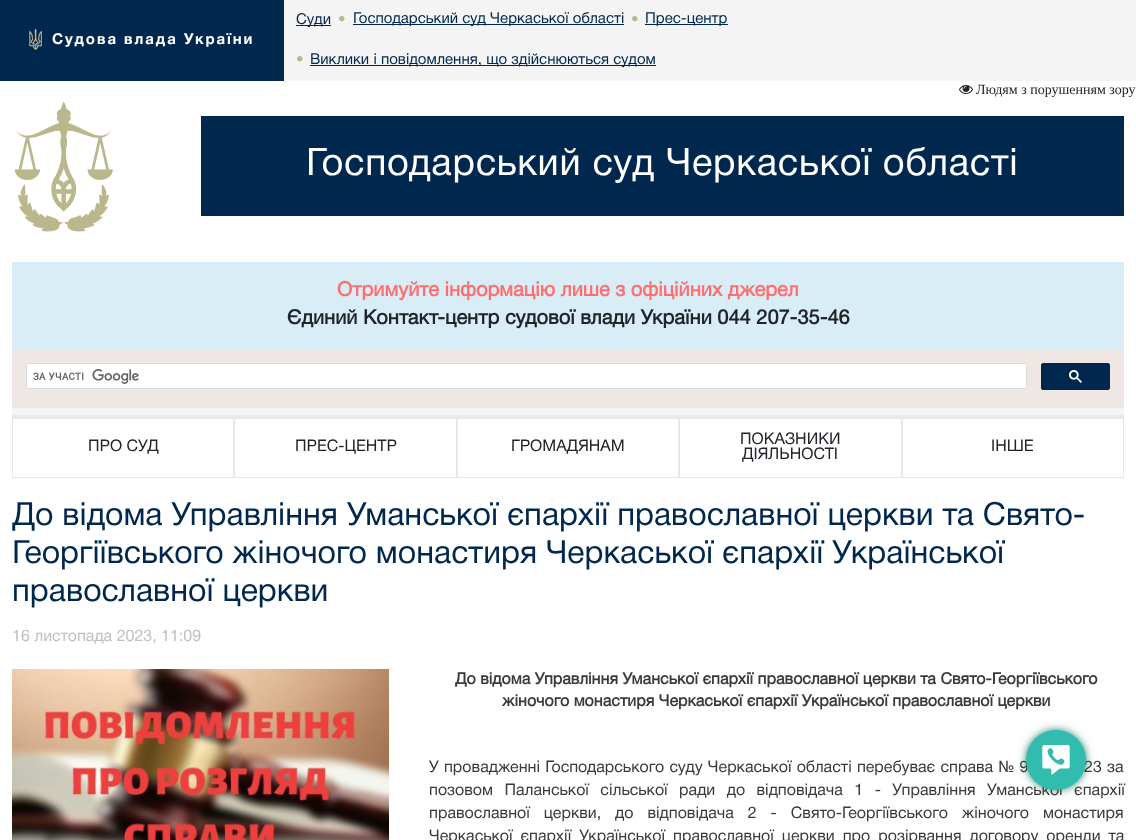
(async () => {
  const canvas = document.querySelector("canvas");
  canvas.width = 1136;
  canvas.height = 840;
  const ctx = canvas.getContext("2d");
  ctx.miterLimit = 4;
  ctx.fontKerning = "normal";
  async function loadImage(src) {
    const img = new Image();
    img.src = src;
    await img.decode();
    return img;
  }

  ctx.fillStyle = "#ffffff";
  ctx.fillRect(0, 0, 1136, 840);
  ctx.fillStyle = "#f4f4f4";
  ctx.fillRect(284, 0, 852, 81);
  ctx.fillStyle = "#00274e";
  ctx.fillRect(0, 0, 284, 81);
  ctx.drawImage(await loadImage("img/1.png"), 29, 29, 13, 21);
  for (const [x, y, w, h, color] of [
    [296, 25, 35, 1, "#00274e"],
    [353, 24, 271, 1, "#00274e"],
    [645, 24, 83, 1, "#00274e"],
    [310, 65, 346, 1, "#00274e"],
  ]) {
    ctx.fillStyle = color;
    ctx.fillRect(x, y, w, h);
  }
  ctx.drawImage(await loadImage("img/2.png"), 959, 85, 14, 9);
  ctx.drawImage(await loadImage("img/3.png"), 14, 101, 99, 131);
  for (const [x, y, w, h, color] of [
    [201, 116, 923, 100, "#00274e"],
    [12, 262, 1112, 87, "#d9edf7"],
    [12, 408, 1112, 7, "#f4f4f4"],
    [12, 349, 1112, 59, "#efe7e3"],
  ]) {
    ctx.fillStyle = color;
    ctx.fillRect(x, y, w, h);
  }
  ctx.fillStyle = "#ffffff";
  ctx.beginPath();
  ctx.rect(26.5, 363.5, 1000, 25);
  ctx.fill();
  ctx.strokeStyle = "#dddddd";
  ctx.stroke();
  ctx.drawImage(await loadImage("img/4.png"), 33, 369, 106, 15);
  ctx.fillStyle = "#00274e";
  ctx.beginPath();
  ctx.roundRect(1041.5, 363.5, 68, 26, 1.5);
  ctx.fill();
  ctx.strokeStyle = "#00274e";
  ctx.stroke();
  ctx.drawImage(await loadImage("img/5.png"), 1069, 370, 13, 13);
  ctx.fillStyle = "#efe7e3";
  ctx.fillRect(12, 415, 1112, 3);
  ctx.strokeStyle = "#e6e6e6";
  ctx.strokeRect(12.5, 418.5, 221, 59);
  ctx.strokeRect(234.5, 418.5, 222, 59);
  ctx.strokeRect(457.5, 418.5, 221, 59);
  ctx.strokeRect(679.5, 418.5, 222, 59);
  ctx.strokeRect(902.5, 418.5, 221, 59);
  ctx.drawImage(await loadImage("img/6.png"), 12, 669, 377, 171);
  ctx.fillStyle = "rgba(33, 130, 119, 0.42)";
  ctx.filter = "blur(5px)";
  ctx.beginPath();
  ctx.roundRect(1025, 729, 62, 62, 31);
  ctx.fill();
  ctx.filter = "none";
  ctx.fillStyle = "rgba(33, 130, 119, 0.46)";
  ctx.filter = "blur(2.5px)";
  ctx.beginPath();
  ctx.roundRect(1025, 729, 62, 62, 31);
  ctx.fill();
  ctx.filter = "none";
  ctx.letterSpacing = "1.9px";
  ctx.font = "bold 15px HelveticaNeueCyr";
  ctx.fillStyle = "#ffffff";
  ctx.fillText("Судова влада України", 52, 44);
  ctx.letterSpacing = "0px";
  ctx.font = "15px HelveticaNeueCyr";
  ctx.fillStyle = "#00274e";
  ctx.fillText("Суди", 296, 24);
  ctx.letterSpacing = "1.9px";
  ctx.font = "bold 15px HelveticaNeueCyr";
  ctx.fillStyle = "#bbb78c";
  ctx.fillText("•", 338, 24);
  ctx.letterSpacing = "0px";
  ctx.font = "15px HelveticaNeueCyr";
  ctx.fillStyle = "#00274e";
  ctx.fillText("Господарський суд Черкаської області", 353, 23);
  ctx.letterSpacing = "1.9px";
  ctx.font = "bold 15px HelveticaNeueCyr";
  ctx.fillStyle = "#bbb78c";
  ctx.fillText("•", 631, 24);
  ctx.letterSpacing = "0px";
  ctx.font = "15px HelveticaNeueCyr";
  ctx.fillStyle = "#00274e";
  ctx.fillText("Прес-центр", 645, 23);
  ctx.letterSpacing = "1.9px";
  ctx.font = "bold 15px HelveticaNeueCyr";
  ctx.fillStyle = "#bbb78c";
  ctx.fillText("•", 296, 64);
  ctx.letterSpacing = "0px";
  ctx.font = "15px HelveticaNeueCyr";
  ctx.fillStyle = "#00274e";
  ctx.fillText("Виклики і повідомлення, що здійснюються судом", 310, 64);
  ctx.font = "14px Liberation Serif";
  ctx.fillStyle = "#212529";
  ctx.fillText("Людям з порушенням зору", 976, 94);
  ctx.letterSpacing = "0.7px";
  ctx.font = "38px HelveticaNeueCyr";
  ctx.fillStyle = "#ffffff";
  ctx.fillText("Господарський суд Черкаської області", 306, 175);
  ctx.letterSpacing = "0px";
  ctx.font = "bold 20px 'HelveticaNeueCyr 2'";
  ctx.fillStyle = "#ff6e6e";
  ctx.fillText("Отримуйте інформацію лише з офіційних джерел", 337, 296);
  ctx.fillStyle = "#212529";
  ctx.fillText("Єдиний Контакт-центр судової влади України 044 207-35-46", 287, 324);
  ctx.font = "16px HelveticaNeueCyr";
  for (const [text, x, y] of [
    ["ПРО СУД", 88, 451],
    ["ПРЕС-ЦЕНТР", 295, 451],
    ["ГРОМАДЯНАМ", 511, 451],
    ["ПОКАЗНИКИ", 740, 444],
    ["ДІЯЛЬНОСТІ", 742, 459],
    ["ІНШЕ", 991, 451],
  ]) {
    ctx.fillText(text, x, y);
  }
  ctx.font = "32px HelveticaNeueCyr";
  ctx.fillStyle = "#00274e";
  for (const [text, x, y] of [
    ["До відома Управління Уманської єпархії православної церкви та Свято-", 12, 525],
    ["Георгіївського жіночого монастиря Черкаської єпархії Української", 12, 563],
    ["православної церкви", 12, 601],
  ]) {
    ctx.fillText(text, x, y);
  }
  ctx.font = "16px HelveticaNeueCyr";
  ctx.fillStyle = "#c0c0c0";
  ctx.fillText("16 листопада 2023, 11:09", 12, 641);
  ctx.font = "bold 16px 'HelveticaNeueCyr 2'";
  ctx.fillStyle = "#3a3a3a";
  ctx.fillText("До відома Управління Уманської єпархії православної церкви та Свято-Георгіївського", 455, 684);
  ctx.fillText("жіночого монастиря Черкаської єпархії Української православної церкви", 502, 706);
  ctx.wordSpacing = "0.75px";
  ctx.font = "16px HelveticaNeueCyr";
  ctx.fillText("У провадженні Господарського суду Черкаської області перебуває справа № 9", 429, 772);
  ctx.fillText("23 за", 1084, 772);
  ctx.wordSpacing = "7px";
  ctx.fillText("позовом Паланської сільської ради до відповідача 1 - Управління Уманської єпархії", 429, 795);
  ctx.wordSpacing = "9.5px";
  ctx.fillText("православної церкви, до відповідача 2 - Свято-Георгіївського жіночого монастиря", 429, 818);
  ctx.wordSpacing = "3.5px";
  ctx.fillText("Черкаської єпархії Української православної церкви про розірвання договору оренди та", 429, 841);
  ctx.fillStyle = "#32bcad";
  ctx.beginPath();
  ctx.arc(1056, 760, 30, 0, Math.PI * 2);
  ctx.fill();
  ctx.drawImage(await loadImage("img/7.png"), 1042, 745, 28, 30);
})();
